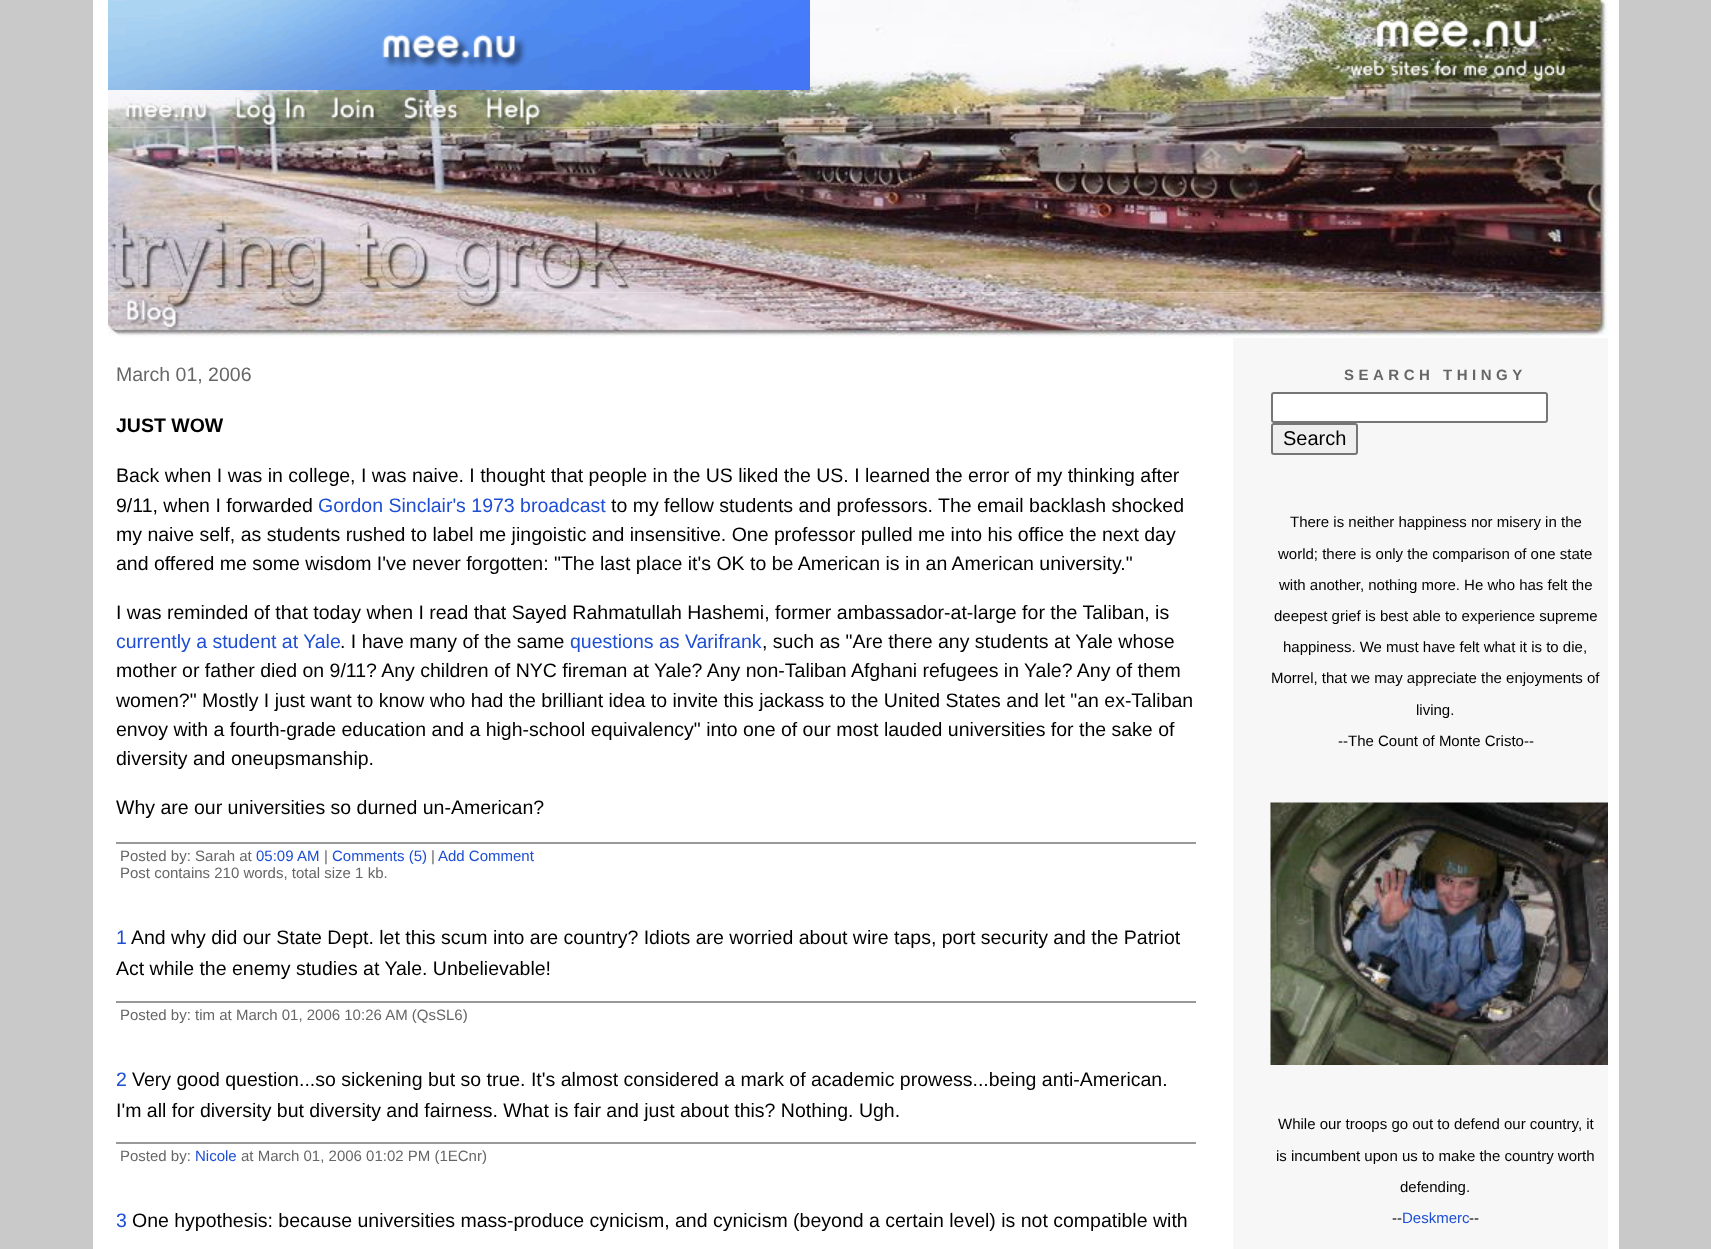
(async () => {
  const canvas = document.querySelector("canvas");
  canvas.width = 1711;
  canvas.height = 1249;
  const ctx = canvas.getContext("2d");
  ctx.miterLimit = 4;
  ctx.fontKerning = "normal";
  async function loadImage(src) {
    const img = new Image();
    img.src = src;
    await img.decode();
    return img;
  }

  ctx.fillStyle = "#c9c9c9";
  ctx.fillRect(0, 0, 1711, 1249);
  ctx.fillStyle = "#ffffff";
  ctx.fillRect(93, 0, 1526, 1249);
  ctx.drawImage(await loadImage("img/1.png"), 810, 0, 798, 90);
  ctx.drawImage(await loadImage("img/2.png"), 108, 0, 702, 90);
  ctx.drawImage(await loadImage("img/3.png"), 1349, 19, 220, 65);
  ctx.drawImage(await loadImage("img/4.png"), 108, 90, 1500, 38);
  ctx.drawImage(await loadImage("img/5.png"), 125, 103, 86, 19);
  ctx.drawImage(await loadImage("img/6.png"), 235, 97, 74, 31);
  ctx.drawImage(await loadImage("img/7.png"), 331, 97, 47, 25);
  ctx.drawImage(await loadImage("img/8.png"), 403, 97, 58, 26);
  ctx.drawImage(await loadImage("img/9.png"), 486, 97, 58, 31);
  ctx.drawImage(await loadImage("img/10.png"), 108, 127, 1500, 166);
  ctx.drawImage(await loadImage("img/11.png"), 108, 292, 1500, 45);
  ctx.drawImage(await loadImage("img/12.png"), 125, 299, 56, 31);
  for (const [x, y, w, h, color] of [
    [116, 842, 1080, 2, "#999999"],
    [116, 1001, 1080, 2, "#999999"],
    [116, 1142, 1080, 2, "#999999"],
    [1233, 338, 375, 911, "#f7f7f7"],
  ]) {
    ctx.fillStyle = color;
    ctx.fillRect(x, y, w, h);
  }
  ctx.fillStyle = "#ffffff";
  ctx.beginPath();
  ctx.roundRect(1272, 393, 275, 29, 2);
  ctx.fill();
  ctx.strokeStyle = "#767676";
  ctx.lineWidth = 2;
  ctx.stroke();
  ctx.fillStyle = "#efefef";
  ctx.beginPath();
  ctx.roundRect(1272, 424, 85, 30, 2);
  ctx.fill();
  ctx.stroke();
  ctx.drawImage(await loadImage("img/13.png"), 1270, 802, 338, 263);
  ctx.font = "19.5px Liberation Sans";
  ctx.fillStyle = "#666666";
  ctx.fillText("March 01, 2006", 116, 381);
  ctx.font = "bold 19.5px Liberation Sans";
  ctx.fillStyle = "#000000";
  ctx.fillText("JUST WOW", 116, 432);
  ctx.font = "19.5px Liberation Sans";
  ctx.fillText("Back when I was in college, I was naive. I thought that people in the US liked the US. I learned the error of my thinking after", 116, 482);
  ctx.fillText("9/11, when I forwarded", 116, 512);
  ctx.fillStyle = "#1d4ed3";
  ctx.fillText("Gordon Sinclair's 1973 broadcast", 318, 512);
  ctx.fillStyle = "#000000";
  for (const [text, x, y] of [
    ["to my fellow students and professors.", 611, 512],
    ["The email backlash shocked", 938, 512],
    ["my naive self, as students rushed to label me jingoistic and insensitive. One professor pulled me into his office the next day", 116, 541],
    ["and offered me some wisdom I've never forgotten: \"The last place it's OK to be American is in an American university.\"", 116, 570],
    ["I was reminded of that today when I read that Sayed Rahmatullah Hashemi, former ambassador-at-large for the Taliban, is", 116, 619],
  ]) {
    ctx.fillText(text, x, y);
  }
  ctx.fillStyle = "#1d4ed3";
  ctx.fillText("currently a student at Yale", 116, 648);
  ctx.fillStyle = "#000000";
  ctx.fillText(". I have many of the same", 340, 648);
  ctx.fillStyle = "#1d4ed3";
  ctx.fillText("questions as Varifrank", 570, 648);
  ctx.fillStyle = "#000000";
  for (const [text, x, y] of [
    [", such as \"Are there any students at Yale whose", 762, 648],
    ["mother or father died on 9/11? Any children of NYC fireman at Yale? Any non-Taliban Afghani refugees in Yale? Any of them", 116, 677],
    ["women?\" Mostly I just want to know who had the brilliant idea to invite this jackass to the United States and let \"an ex-Taliban", 116, 707],
    ["envoy with a fourth-grade education and a high-school equivalency\" into one of our most lauded universities for the sake of", 116, 736],
    ["diversity and oneupsmanship.", 116, 765],
    ["Why are our universities so durned un-American?", 116, 814],
  ]) {
    ctx.fillText(text, x, y);
  }
  ctx.font = "15px Liberation Sans";
  ctx.fillStyle = "#666666";
  ctx.fillText("Posted by: Sarah at", 120, 861);
  ctx.fillStyle = "#1d4ed3";
  ctx.fillText("05:09 AM", 256, 861);
  ctx.fillStyle = "#666666";
  ctx.fillText("|", 324, 861);
  ctx.fillStyle = "#1d4ed3";
  ctx.fillText("Comments (5)", 332, 861);
  ctx.fillStyle = "#666666";
  ctx.fillText("|", 431, 861);
  ctx.fillStyle = "#1d4ed3";
  ctx.fillText("Add Comment", 438, 861);
  ctx.fillStyle = "#666666";
  ctx.fillText("Post contains 210 words, total size 1 kb.", 120, 878);
  ctx.font = "19.5px Liberation Sans";
  ctx.fillStyle = "#1d4ed3";
  ctx.fillText("1", 116, 944);
  ctx.fillStyle = "#000000";
  ctx.fillText("And why did our State Dept. let this scum into are country? Idiots are worried about wire taps, port security and the Patriot", 131, 944);
  ctx.fillText("Act while the enemy studies at Yale. Unbelievable!", 116, 975);
  ctx.font = "15px Liberation Sans";
  ctx.fillStyle = "#666666";
  ctx.fillText("Posted by: tim at March 01, 2006 10:26 AM (QsSL6)", 120, 1020);
  ctx.font = "19.5px Liberation Sans";
  ctx.fillStyle = "#1d4ed3";
  ctx.fillText("2", 116, 1086);
  ctx.fillStyle = "#000000";
  ctx.fillText("Very good question...so sickening but so true. It's almost considered a mark of academic prowess...being anti-American.", 132, 1086);
  ctx.fillText("I'm all for diversity but diversity and fairness. What is fair and just about this? Nothing. Ugh.", 116, 1117);
  ctx.font = "15px Liberation Sans";
  ctx.fillStyle = "#666666";
  ctx.fillText("Posted by:", 120, 1161);
  ctx.fillStyle = "#1d4ed3";
  ctx.fillText("Nicole", 195, 1161);
  ctx.fillStyle = "#666666";
  ctx.fillText("at March 01, 2006 01:02 PM (1ECnr)", 241, 1161);
  ctx.font = "19.5px Liberation Sans";
  ctx.fillStyle = "#1d4ed3";
  ctx.fillText("3", 116, 1227);
  ctx.fillStyle = "#000000";
  ctx.fillText("One hypothesis: because universities mass-produce cynicism, and cynicism (beyond a certain level) is not compatible with", 132, 1227);
  ctx.letterSpacing = "4.5px";
  ctx.font = "bold 15px Liberation Sans";
  ctx.fillStyle = "#666666";
  ctx.fillText("SEARCH THINGY", 1344, 380);
  ctx.letterSpacing = "0px";
  ctx.font = "20px Liberation Sans";
  ctx.fillStyle = "#000000";
  ctx.fillText("Search", 1283, 445);
  ctx.font = "15px Liberation Sans";
  for (const [text, x, y] of [
    ["There is neither happiness nor misery in the", 1290, 527],
    ["world; there is only the comparison of one state", 1278, 559],
    ["with another, nothing more. He who has felt the", 1279, 590],
    ["deepest grief is best able to experience supreme", 1274, 621],
    ["happiness. We must have felt what it is to die,", 1283, 652],
    ["Morrel, that we may appreciate the enjoyments of", 1271, 683],
    ["living.", 1416, 715],
    ["--The Count of Monte Cristo--", 1338, 746],
    ["While our troops go out to defend our country, it", 1278, 1129],
    ["is incumbent upon us to make the country worth", 1276, 1161],
    ["defending.", 1400, 1192],
    ["--", 1392, 1223],
  ]) {
    ctx.fillText(text, x, y);
  }
  ctx.fillStyle = "#1d4ed3";
  ctx.fillText("Deskmerc", 1402, 1223);
  ctx.fillStyle = "#000000";
  ctx.fillText("--", 1469, 1223);
})();
